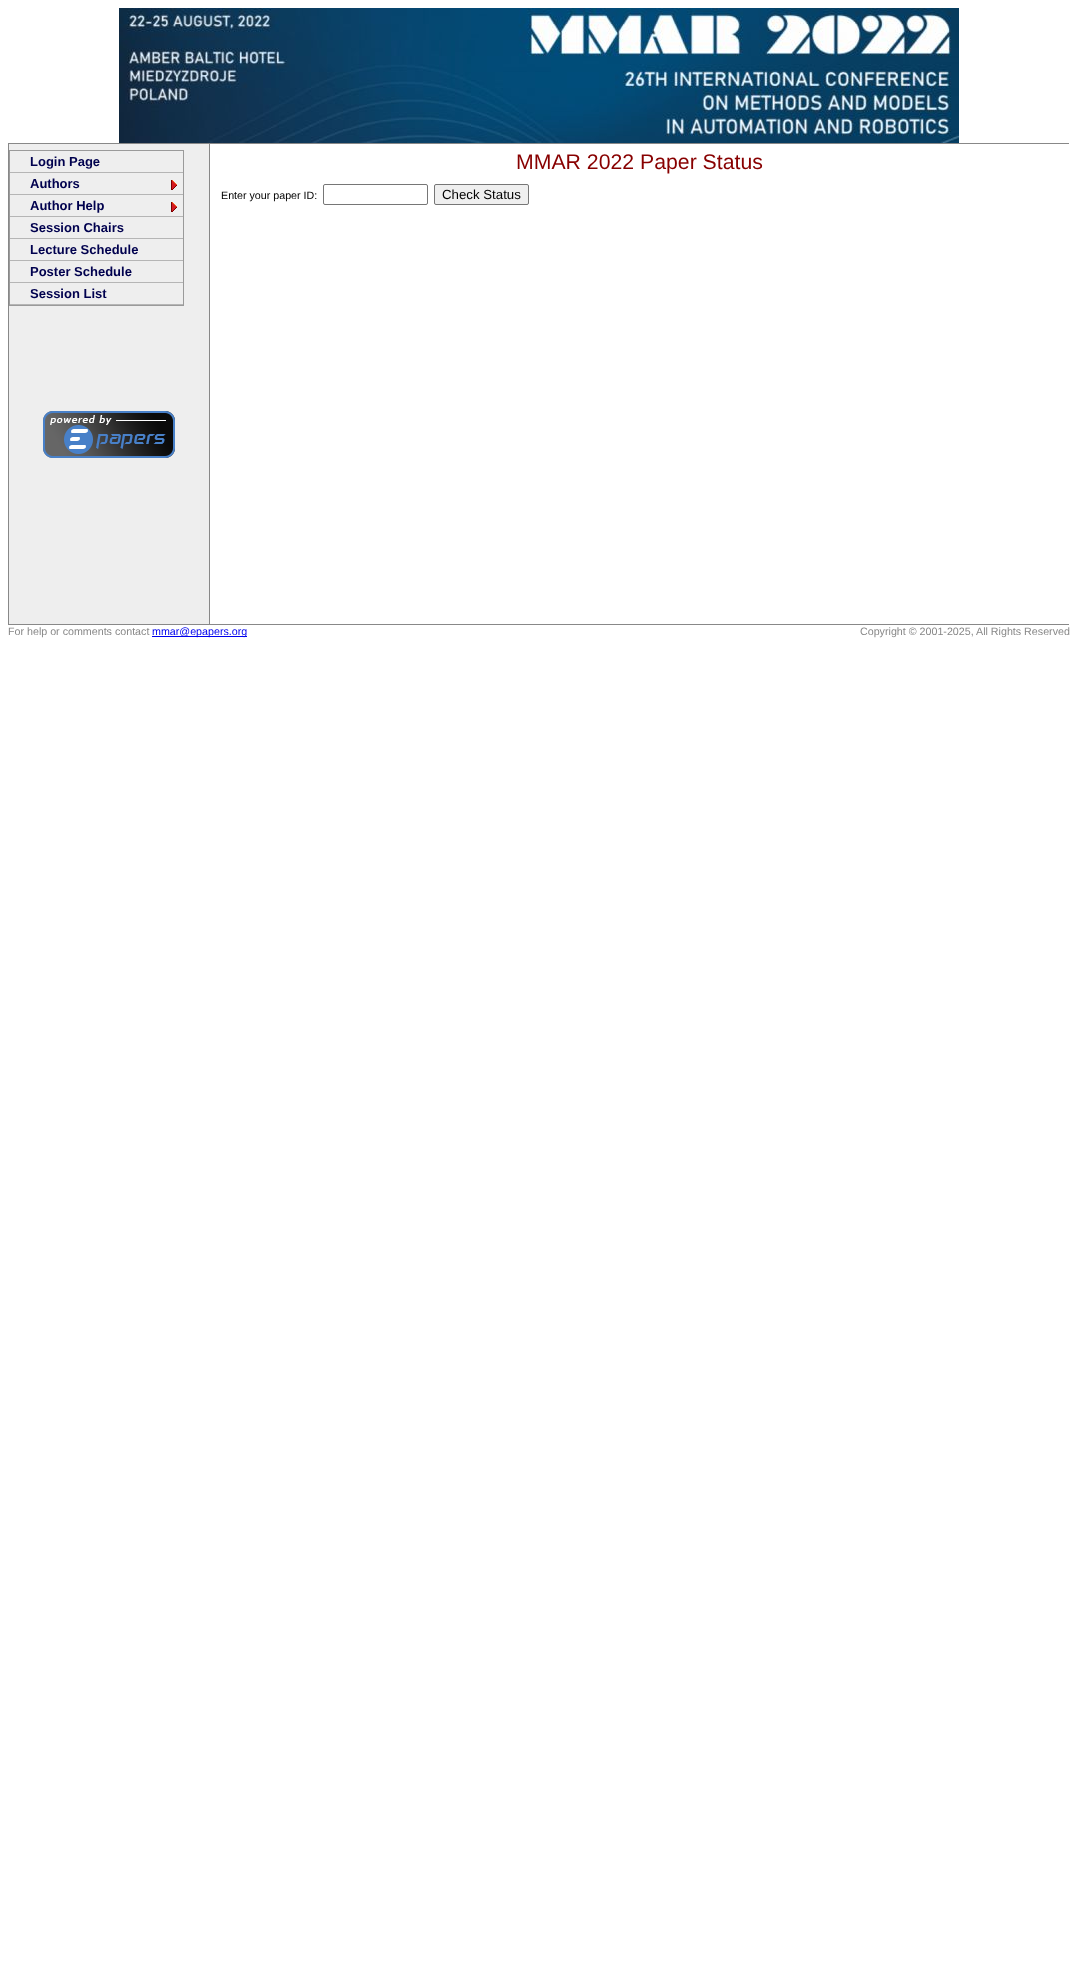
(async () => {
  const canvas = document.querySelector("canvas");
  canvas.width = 1077;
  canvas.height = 1969;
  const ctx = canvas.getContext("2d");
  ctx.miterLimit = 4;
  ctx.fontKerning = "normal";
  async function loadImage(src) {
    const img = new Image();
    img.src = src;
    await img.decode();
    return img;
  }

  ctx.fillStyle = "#ffffff";
  ctx.fillRect(0, 0, 1077, 1969);
  ctx.fillStyle = "#888888";
  ctx.fillRect(8, 143, 1061, 1);
  ctx.drawImage(await loadImage("img/1.png"), 119, 8, 840, 135);
  for (const [x, y, w, h, color] of [
    [9, 144, 200, 480, "#eeeeee"],
    [209, 144, 1, 480, "#888888"],
    [8, 144, 1, 480, "#888888"],
  ]) {
    ctx.fillStyle = color;
    ctx.fillRect(x, y, w, h);
  }
  ctx.strokeStyle = "#9a9a9a";
  ctx.strokeRect(9.5, 150.5, 174, 155);
  ctx.fillStyle = "#b5b5b5";
  ctx.fillRect(10, 172, 173, 1);
  ctx.fillRect(10, 194, 173, 1);
  ctx.drawImage(await loadImage("img/2.png"), 171, 180, 6, 10);
  ctx.fillRect(10, 216, 173, 1);
  ctx.drawImage(await loadImage("img/2.png"), 171, 202, 6, 10);
  for (const [x, y, w, h, color] of [
    [10, 238, 173, 1, "#b5b5b5"],
    [10, 260, 173, 1, "#b5b5b5"],
    [10, 282, 173, 1, "#b5b5b5"],
    [10, 304, 173, 1, "#b5b5b5"],
  ]) {
    ctx.fillStyle = color;
    ctx.fillRect(x, y, w, h);
  }
  ctx.drawImage(await loadImage("img/3.png"), 43, 411, 132, 47);
  ctx.beginPath();
  ctx.roundRect(323.5, 184.5, 104, 20, 1.5);
  ctx.strokeStyle = "#767676";
  ctx.stroke();
  ctx.fillStyle = "#efefef";
  ctx.beginPath();
  ctx.roundRect(434.5, 184.5, 94, 20, 1.5);
  ctx.fill();
  ctx.stroke();
  ctx.fillStyle = "#888888";
  ctx.fillRect(8, 624, 1061, 1);
  ctx.fillStyle = "#0000ee";
  ctx.fillRect(152, 636, 95, 1);
  ctx.font = "bold 13px Liberation Sans";
  ctx.fillStyle = "#00014e";
  for (const [text, x, y] of [
    ["Login Page", 30, 166],
    ["Authors", 30, 188],
    ["Author Help", 30, 210],
    ["Session Chairs", 30, 232],
    ["Lecture Schedule", 30, 254],
    ["Poster Schedule", 30, 276],
    ["Session List", 30, 298],
  ]) {
    ctx.fillText(text, x, y);
  }
  ctx.font = "21.25px Liberation Sans";
  ctx.fillStyle = "#880000";
  ctx.fillText("MMAR 2022 Paper Status", 516, 169);
  ctx.font = "10.7px Liberation Sans";
  ctx.fillStyle = "#000000";
  ctx.fillText("Enter your paper ID:", 221, 199);
  ctx.font = "13.25px Liberation Sans";
  ctx.fillText("Check Status", 442, 199);
  ctx.font = "10.7px Liberation Sans";
  ctx.fillStyle = "#888888";
  ctx.fillText("For help or comments contact", 8, 635);
  ctx.fillStyle = "#0000ee";
  ctx.fillText("mmar@epapers.org", 152, 635);
  ctx.fillStyle = "#888888";
  ctx.fillText("Copyright © 2001-2025, All Rights Reserved", 860, 635);
})();
